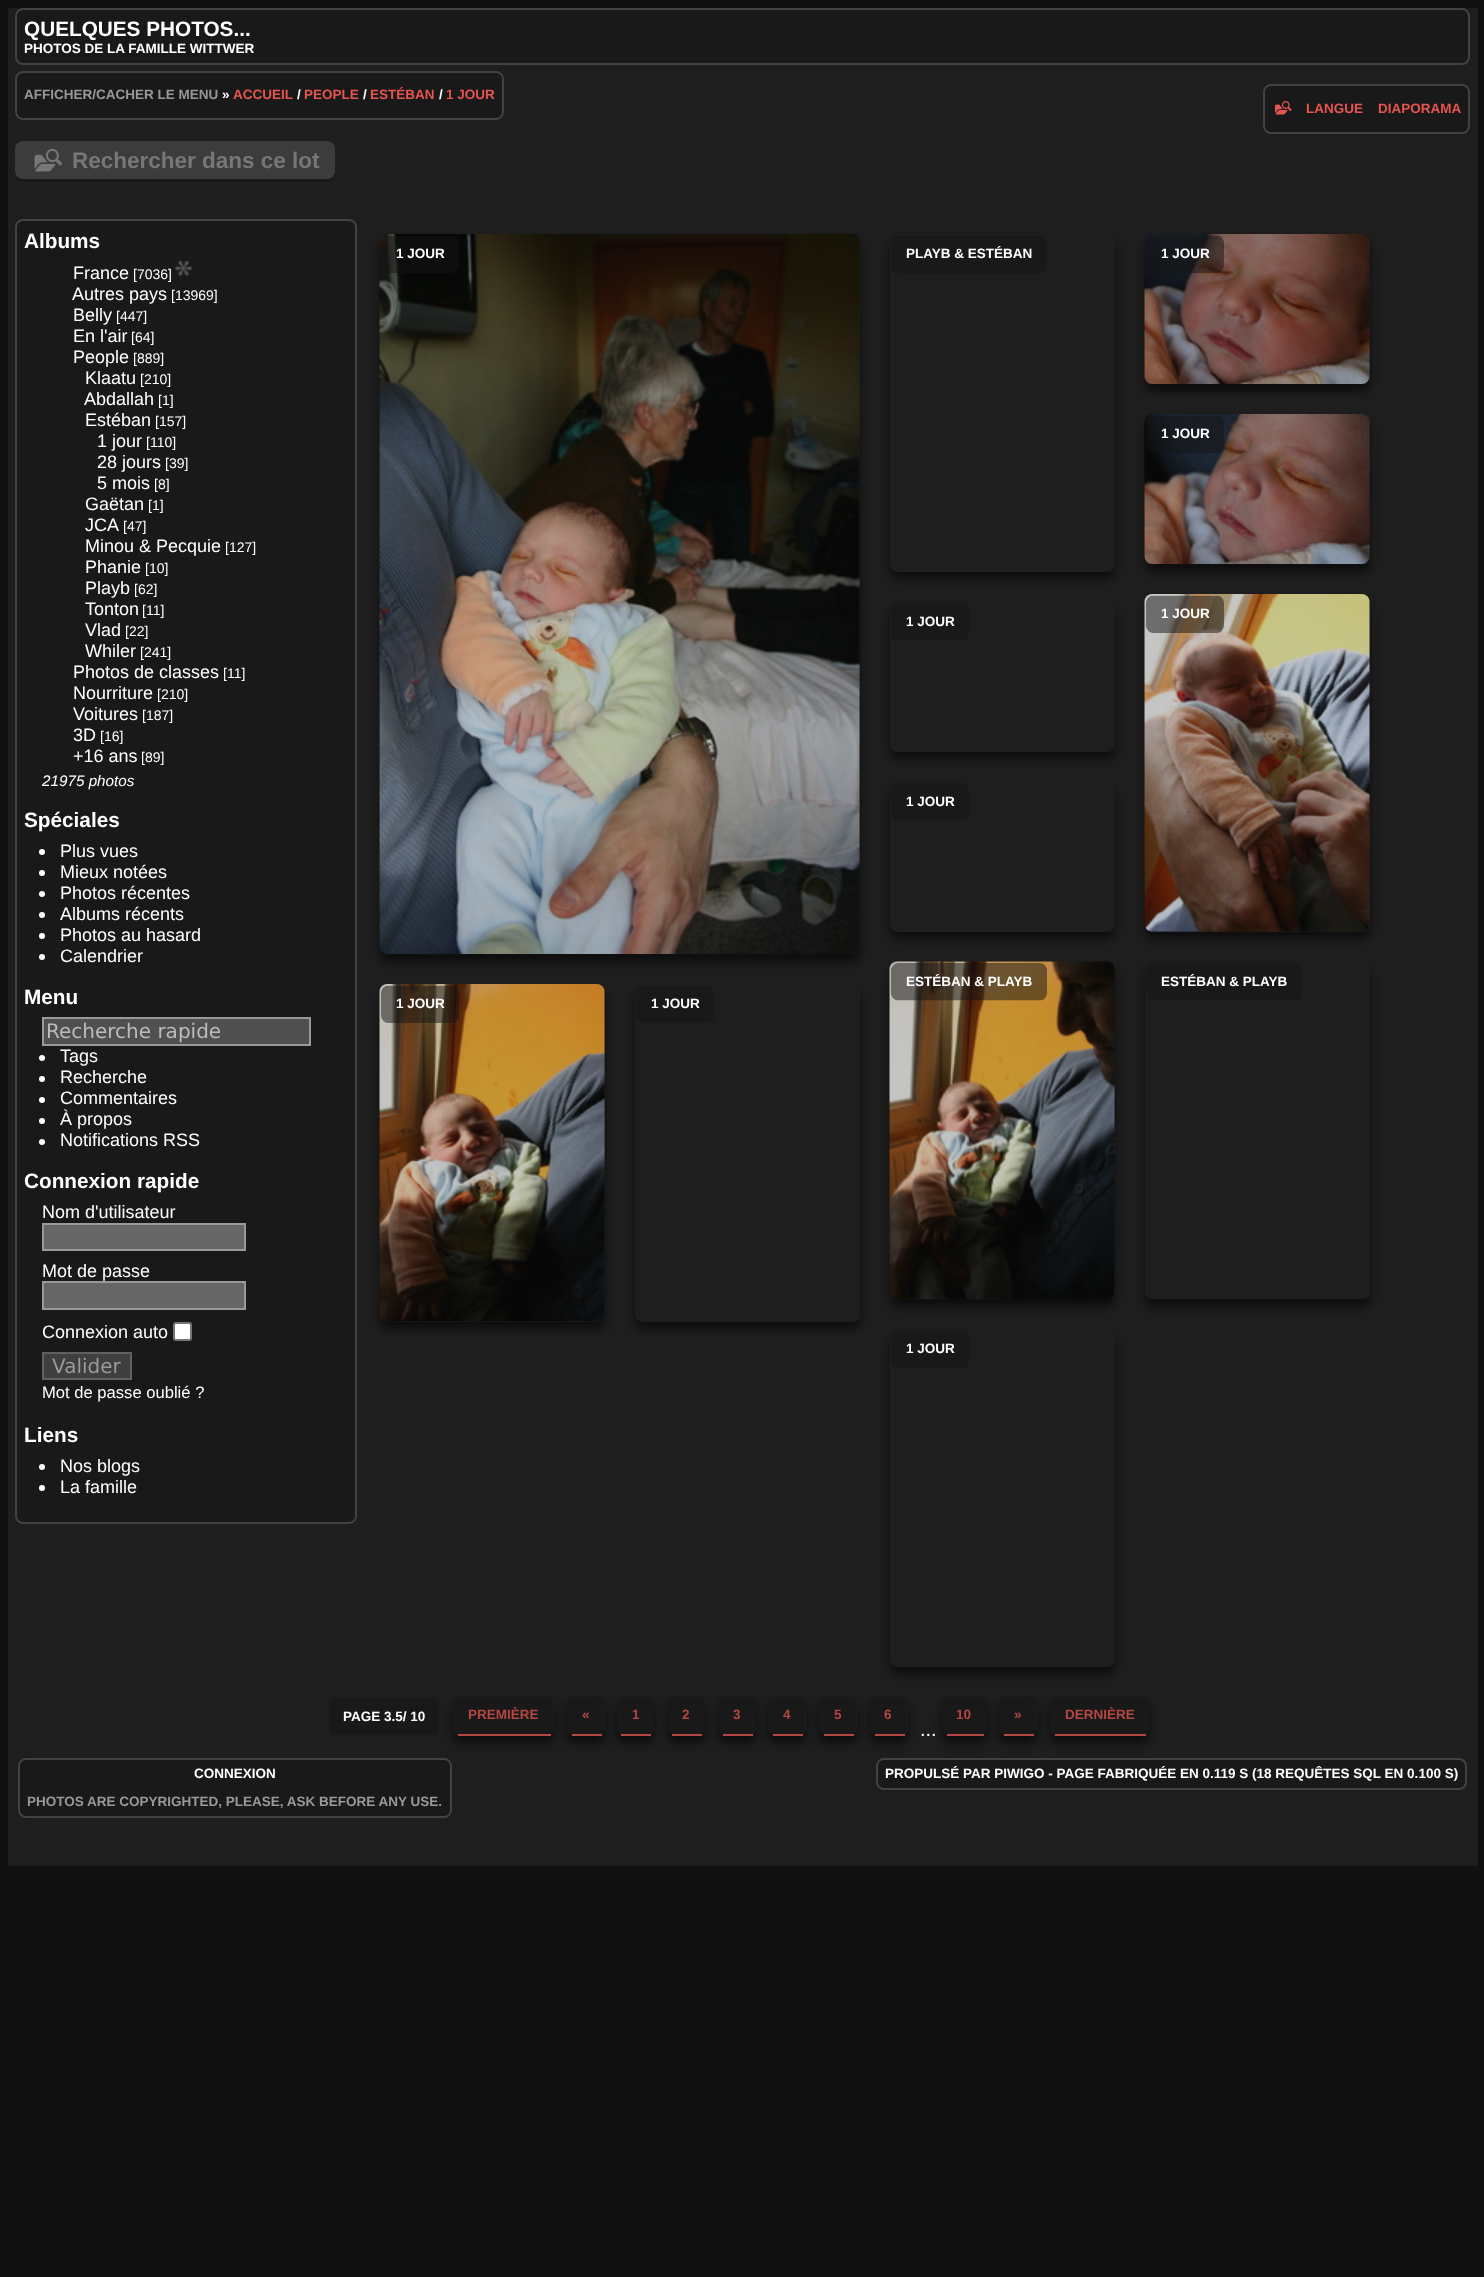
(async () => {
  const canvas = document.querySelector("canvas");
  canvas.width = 1484;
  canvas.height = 2277;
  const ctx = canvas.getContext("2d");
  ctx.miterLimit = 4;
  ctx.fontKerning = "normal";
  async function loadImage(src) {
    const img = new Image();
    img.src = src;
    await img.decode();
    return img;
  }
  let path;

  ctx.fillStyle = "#101010";
  ctx.fillRect(0, 0, 1484, 2277);
  ctx.fillStyle = "#1e1e1e";
  ctx.fillRect(8, 8, 1470, 1858);
  ctx.drawImage(await loadImage("img/1.png"), 15, 8, 1455, 56);
  ctx.beginPath();
  ctx.roundRect(16, 9, 1453, 55, 7);
  ctx.strokeStyle = "#424242";
  ctx.lineWidth = 2;
  ctx.stroke();
  ctx.drawImage(await loadImage("img/2.png"), 15, 71, 489, 49);
  ctx.beginPath();
  ctx.roundRect(16, 72, 487, 47, 7);
  ctx.stroke();
  ctx.drawImage(await loadImage("img/3.png"), 1263, 84, 207, 49);
  ctx.beginPath();
  ctx.roundRect(1264, 85, 205, 48, 7);
  ctx.stroke();
  ctx.drawImage(await loadImage("img/4.png"), 1275, 101, 17, 14);
  ctx.fillStyle = "#1a1a1a";
  path = new Path2D("M15 171V174C15 178 19 182 23 182H327C331 182 335 178 335 174V152L334 149V171C334 175 331 178 327 178H22C18 178 15 175 15 171Z");
  ctx.fill(path);
  ctx.fillStyle = "#3c3c3c";
  ctx.beginPath();
  ctx.roundRect(15, 141, 320, 38, 8);
  ctx.fill();
  ctx.drawImage(await loadImage("img/5.png"), 34, 148, 28, 24);
  ctx.drawImage(await loadImage("img/6.png"), 15, 219, 342, 1305);
  ctx.beginPath();
  ctx.roundRect(16, 220, 340, 1303, 7);
  ctx.stroke();
  ctx.drawImage(await loadImage("img/7.png"), 175, 261, 17, 16);
  ctx.fillStyle = "#ffffff";
  ctx.beginPath();
  ctx.arc(42, 852, 3, 0, Math.PI * 2);
  ctx.fill();
  ctx.beginPath();
  ctx.arc(42, 873, 3, 0, Math.PI * 2);
  ctx.fill();
  ctx.beginPath();
  ctx.arc(42, 894, 3, 0, Math.PI * 2);
  ctx.fill();
  ctx.beginPath();
  ctx.arc(42, 915, 3, 0, Math.PI * 2);
  ctx.fill();
  ctx.beginPath();
  ctx.arc(42, 936, 3, 0, Math.PI * 2);
  ctx.fill();
  ctx.beginPath();
  ctx.arc(42, 957, 3, 0, Math.PI * 2);
  ctx.fill();
  ctx.fillStyle = "#505050";
  ctx.beginPath();
  ctx.rect(43, 1018, 267, 27);
  ctx.fill();
  ctx.strokeStyle = "#999999";
  ctx.stroke();
  ctx.fillStyle = "#ffffff";
  ctx.beginPath();
  ctx.arc(42, 1058, 3, 0, Math.PI * 2);
  ctx.fill();
  ctx.beginPath();
  ctx.arc(42, 1079, 3, 0, Math.PI * 2);
  ctx.fill();
  ctx.beginPath();
  ctx.arc(42, 1100, 3, 0, Math.PI * 2);
  ctx.fill();
  ctx.beginPath();
  ctx.arc(42, 1121, 3, 0, Math.PI * 2);
  ctx.fill();
  ctx.beginPath();
  ctx.arc(42, 1142, 3, 0, Math.PI * 2);
  ctx.fill();
  ctx.fillStyle = "#666666";
  ctx.beginPath();
  ctx.rect(43, 1224, 202, 26);
  ctx.fill();
  ctx.stroke();
  ctx.beginPath();
  ctx.rect(43, 1282, 202, 27);
  ctx.fill();
  ctx.stroke();
  ctx.fillStyle = "#ffffff";
  ctx.beginPath();
  ctx.roundRect(174, 1323, 17, 17, 2);
  ctx.fill();
  ctx.strokeStyle = "#767676";
  ctx.stroke();
  ctx.fillStyle = "#3f3f3f";
  ctx.beginPath();
  ctx.rect(43, 1353, 88, 26);
  ctx.fill();
  ctx.strokeStyle = "#606060";
  ctx.stroke();
  ctx.fillStyle = "#ffffff";
  ctx.beginPath();
  ctx.arc(42, 1467, 3, 0, Math.PI * 2);
  ctx.fill();
  ctx.beginPath();
  ctx.arc(42, 1488, 3, 0, Math.PI * 2);
  ctx.fill();
  ctx.save();
  path = new Path2D("M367 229H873V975H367ZM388 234H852C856.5 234 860 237.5 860 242V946C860 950.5 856.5 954 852 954H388C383.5 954 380 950.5 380 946V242C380 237.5 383.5 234 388 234Z");
  ctx.clip(path, "evenodd");
  ctx.fillStyle = "rgba(8, 8, 8, 0.75)";
  ctx.filter = "blur(4px)";
  ctx.beginPath();
  ctx.roundRect(380, 242, 480, 720, 8);
  ctx.fill();
  ctx.filter = "none";
  ctx.restore();
  ctx.drawImage(await loadImage("img/8.png"), 379, 234, 481, 720);
  ctx.drawImage(await loadImage("img/9.png"), 381, 236, 78, 37);
  ctx.save();
  path = new Path2D("M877 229H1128V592H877ZM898 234H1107C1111.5 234 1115 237.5 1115 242V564C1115 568.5 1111.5 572 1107 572H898C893.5 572 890 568.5 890 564V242C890 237.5 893.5 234 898 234Z");
  ctx.clip(path, "evenodd");
  ctx.fillStyle = "rgba(8, 8, 8, 0.75)";
  ctx.filter = "blur(4px)";
  ctx.beginPath();
  ctx.roundRect(890, 242, 225, 337, 8);
  ctx.fill();
  ctx.filter = "none";
  ctx.restore();
  ctx.drawImage(await loadImage("img/10.png"), 891, 236, 156, 37);
  ctx.save();
  path = new Path2D("M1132 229H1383V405H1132ZM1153 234H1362C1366.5 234 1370 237.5 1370 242V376C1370 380.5 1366.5 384 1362 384H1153C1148.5 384 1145 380.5 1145 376V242C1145 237.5 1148.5 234 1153 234Z");
  ctx.clip(path, "evenodd");
  ctx.fillStyle = "rgba(8, 8, 8, 0.75)";
  ctx.filter = "blur(4px)";
  ctx.beginPath();
  ctx.roundRect(1145, 242, 225, 150, 8);
  ctx.fill();
  ctx.filter = "none";
  ctx.restore();
  ctx.drawImage(await loadImage("img/11.png"), 1144, 234, 226, 150);
  ctx.drawImage(await loadImage("img/12.png"), 1146, 235, 78, 38);
  ctx.save();
  path = new Path2D("M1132 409H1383V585H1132ZM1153 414H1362C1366.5 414 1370 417.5 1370 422V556C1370 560.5 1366.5 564 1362 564H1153C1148.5 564 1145 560.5 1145 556V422C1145 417.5 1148.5 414 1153 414Z");
  ctx.clip(path, "evenodd");
  ctx.fillStyle = "rgba(8, 8, 8, 0.75)";
  ctx.filter = "blur(4px)";
  ctx.beginPath();
  ctx.roundRect(1145, 422, 225, 150, 8);
  ctx.fill();
  ctx.filter = "none";
  ctx.restore();
  ctx.drawImage(await loadImage("img/13.png"), 1144, 414, 226, 150);
  ctx.drawImage(await loadImage("img/14.png"), 1146, 416, 78, 37);
  ctx.save();
  path = new Path2D("M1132 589H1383V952H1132ZM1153 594H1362C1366.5 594 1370 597.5 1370 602V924C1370 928.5 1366.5 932 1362 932H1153C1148.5 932 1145 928.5 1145 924V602C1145 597.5 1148.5 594 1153 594Z");
  ctx.clip(path, "evenodd");
  ctx.fillStyle = "rgba(8, 8, 8, 0.75)";
  ctx.filter = "blur(4px)";
  ctx.beginPath();
  ctx.roundRect(1145, 602, 225, 337, 8);
  ctx.fill();
  ctx.filter = "none";
  ctx.restore();
  ctx.drawImage(await loadImage("img/15.png"), 1144, 594, 226, 338);
  ctx.drawImage(await loadImage("img/16.png"), 1146, 595, 78, 38);
  ctx.save();
  path = new Path2D("M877 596H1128V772H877ZM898 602H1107C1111.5 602 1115 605.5 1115 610V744C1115 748.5 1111.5 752 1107 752H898C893.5 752 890 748.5 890 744V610C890 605.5 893.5 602 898 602Z");
  ctx.clip(path, "evenodd");
  ctx.fillStyle = "rgba(8, 8, 8, 0.75)";
  ctx.filter = "blur(4px)";
  ctx.beginPath();
  ctx.roundRect(890, 609, 225, 150, 8);
  ctx.fill();
  ctx.filter = "none";
  ctx.restore();
  ctx.drawImage(await loadImage("img/17.png"), 891, 603, 78, 37);
  ctx.save();
  path = new Path2D("M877 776H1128V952H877ZM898 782H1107C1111.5 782 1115 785.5 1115 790V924C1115 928.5 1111.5 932 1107 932H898C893.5 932 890 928.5 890 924V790C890 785.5 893.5 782 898 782Z");
  ctx.clip(path, "evenodd");
  ctx.fillStyle = "rgba(8, 8, 8, 0.75)";
  ctx.filter = "blur(4px)";
  ctx.beginPath();
  ctx.roundRect(890, 789, 225, 150, 8);
  ctx.fill();
  ctx.filter = "none";
  ctx.restore();
  ctx.drawImage(await loadImage("img/17.png"), 891, 783, 78, 37);
  ctx.save();
  path = new Path2D("M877 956H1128V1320H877ZM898 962H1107C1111.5 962 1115 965.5 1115 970V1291C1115 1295.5 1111.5 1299 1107 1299H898C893.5 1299 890 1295.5 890 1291V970C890 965.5 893.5 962 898 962Z");
  ctx.clip(path, "evenodd");
  ctx.fillStyle = "rgba(8, 8, 8, 0.75)";
  ctx.filter = "blur(4px)";
  ctx.beginPath();
  ctx.roundRect(890, 969, 225, 338, 8);
  ctx.fill();
  ctx.filter = "none";
  ctx.restore();
  ctx.drawImage(await loadImage("img/18.png"), 889, 961, 226, 339);
  ctx.drawImage(await loadImage("img/19.png"), 891, 963, 156, 38);
  ctx.save();
  path = new Path2D("M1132 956H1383V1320H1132ZM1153 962H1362C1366.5 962 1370 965.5 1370 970V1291C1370 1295.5 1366.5 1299 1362 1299H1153C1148.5 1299 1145 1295.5 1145 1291V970C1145 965.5 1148.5 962 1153 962Z");
  ctx.clip(path, "evenodd");
  ctx.fillStyle = "rgba(8, 8, 8, 0.75)";
  ctx.filter = "blur(4px)";
  ctx.beginPath();
  ctx.roundRect(1145, 969, 225, 338, 8);
  ctx.fill();
  ctx.filter = "none";
  ctx.restore();
  ctx.drawImage(await loadImage("img/20.png"), 1146, 963, 156, 37);
  ctx.save();
  path = new Path2D("M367 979H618V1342H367ZM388 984H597C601.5 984 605 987.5 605 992V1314C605 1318.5 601.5 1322 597 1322H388C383.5 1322 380 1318.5 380 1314V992C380 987.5 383.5 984 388 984Z");
  ctx.clip(path, "evenodd");
  ctx.fillStyle = "rgba(8, 8, 8, 0.75)";
  ctx.filter = "blur(4px)";
  ctx.beginPath();
  ctx.roundRect(380, 992, 225, 337, 8);
  ctx.fill();
  ctx.filter = "none";
  ctx.restore();
  ctx.drawImage(await loadImage("img/21.png"), 379, 984, 226, 338);
  ctx.drawImage(await loadImage("img/22.png"), 381, 985, 78, 38);
  ctx.save();
  path = new Path2D("M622 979H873V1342H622ZM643 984H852C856.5 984 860 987.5 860 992V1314C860 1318.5 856.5 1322 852 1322H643C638.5 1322 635 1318.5 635 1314V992C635 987.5 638.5 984 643 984Z");
  ctx.clip(path, "evenodd");
  ctx.fillStyle = "rgba(8, 8, 8, 0.75)";
  ctx.filter = "blur(4px)";
  ctx.beginPath();
  ctx.roundRect(635, 992, 225, 337, 8);
  ctx.fill();
  ctx.filter = "none";
  ctx.restore();
  ctx.drawImage(await loadImage("img/23.png"), 636, 986, 78, 37);
  ctx.save();
  path = new Path2D("M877 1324H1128V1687H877ZM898 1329H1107C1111.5 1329 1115 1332.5 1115 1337V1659C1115 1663.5 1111.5 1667 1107 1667H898C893.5 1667 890 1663.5 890 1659V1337C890 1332.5 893.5 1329 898 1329Z");
  ctx.clip(path, "evenodd");
  ctx.fillStyle = "rgba(8, 8, 8, 0.75)";
  ctx.filter = "blur(4px)";
  ctx.beginPath();
  ctx.roundRect(890, 1337, 225, 337, 8);
  ctx.fill();
  ctx.filter = "none";
  ctx.restore();
  ctx.drawImage(await loadImage("img/23.png"), 891, 1331, 78, 37);
  ctx.drawImage(await loadImage("img/24.png"), 329, 1698, 110, 37);
  ctx.save();
  path = new Path2D("M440 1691H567V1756H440ZM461 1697H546C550.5 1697 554 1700.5 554 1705V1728C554 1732.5 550.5 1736 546 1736H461C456.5 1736 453 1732.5 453 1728V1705C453 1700.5 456.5 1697 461 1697Z");
  ctx.clip(path, "evenodd");
  ctx.fillStyle = "rgba(8, 8, 8, 0.75)";
  ctx.filter = "blur(4px)";
  ctx.beginPath();
  ctx.roundRect(453, 1704, 101, 39, 8);
  ctx.fill();
  ctx.filter = "none";
  ctx.restore();
  ctx.drawImage(await loadImage("img/25.png"), 453, 1697, 100, 38);
  ctx.fillStyle = "#b44743";
  ctx.fillRect(458, 1734, 93, 2);
  ctx.save();
  path = new Path2D("M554 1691H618V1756H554ZM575 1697H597C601.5 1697 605 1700.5 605 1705V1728C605 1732.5 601.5 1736 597 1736H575C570.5 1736 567 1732.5 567 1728V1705C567 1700.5 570.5 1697 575 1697Z");
  ctx.clip(path, "evenodd");
  ctx.fillStyle = "rgba(7, 7, 7, 0.75)";
  ctx.filter = "blur(4px)";
  ctx.beginPath();
  ctx.roundRect(567, 1704, 38, 39, 8);
  ctx.fill();
  ctx.filter = "none";
  ctx.restore();
  ctx.drawImage(await loadImage("img/26.png"), 567, 1697, 37, 38);
  ctx.fillRect(572, 1734, 30, 2);
  ctx.save();
  path = new Path2D("M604 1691H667V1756H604ZM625 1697H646C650.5 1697 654 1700.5 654 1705V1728C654 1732.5 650.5 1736 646 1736H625C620.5 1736 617 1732.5 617 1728V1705C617 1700.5 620.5 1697 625 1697Z");
  ctx.clip(path, "evenodd");
  ctx.fillStyle = "rgba(7, 7, 7, 0.75)";
  ctx.filter = "blur(4px)";
  ctx.beginPath();
  ctx.roundRect(617, 1704, 37, 39, 8);
  ctx.fill();
  ctx.filter = "none";
  ctx.restore();
  ctx.drawImage(await loadImage("img/27.png"), 617, 1697, 37, 38);
  ctx.fillRect(621, 1734, 30, 2);
  ctx.save();
  path = new Path2D("M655 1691H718V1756H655ZM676 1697H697C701.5 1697 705 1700.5 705 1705V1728C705 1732.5 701.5 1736 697 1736H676C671.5 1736 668 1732.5 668 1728V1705C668 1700.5 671.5 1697 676 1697Z");
  ctx.clip(path, "evenodd");
  ctx.fillStyle = "rgba(7, 7, 7, 0.75)";
  ctx.filter = "blur(4px)";
  ctx.beginPath();
  ctx.roundRect(668, 1704, 37, 39, 8);
  ctx.fill();
  ctx.filter = "none";
  ctx.restore();
  ctx.drawImage(await loadImage("img/27.png"), 668, 1697, 37, 38);
  ctx.fillRect(672, 1734, 30, 2);
  ctx.save();
  path = new Path2D("M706 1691H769V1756H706ZM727 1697H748C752.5 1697 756 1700.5 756 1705V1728C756 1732.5 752.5 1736 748 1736H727C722.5 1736 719 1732.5 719 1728V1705C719 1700.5 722.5 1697 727 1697Z");
  ctx.clip(path, "evenodd");
  ctx.fillStyle = "rgba(7, 7, 7, 0.75)";
  ctx.filter = "blur(4px)";
  ctx.beginPath();
  ctx.roundRect(719, 1704, 37, 39, 8);
  ctx.fill();
  ctx.filter = "none";
  ctx.restore();
  ctx.drawImage(await loadImage("img/27.png"), 719, 1697, 37, 38);
  ctx.fillRect(723, 1734, 30, 2);
  ctx.save();
  path = new Path2D("M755 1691H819V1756H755ZM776 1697H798C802.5 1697 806 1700.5 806 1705V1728C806 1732.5 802.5 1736 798 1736H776C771.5 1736 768 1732.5 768 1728V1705C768 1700.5 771.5 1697 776 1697Z");
  ctx.clip(path, "evenodd");
  ctx.fillStyle = "rgba(7, 7, 7, 0.75)";
  ctx.filter = "blur(4px)";
  ctx.beginPath();
  ctx.roundRect(768, 1704, 38, 39, 8);
  ctx.fill();
  ctx.filter = "none";
  ctx.restore();
  ctx.drawImage(await loadImage("img/28.png"), 768, 1697, 37, 38);
  ctx.fillRect(773, 1734, 30, 2);
  ctx.save();
  path = new Path2D("M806 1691H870V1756H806ZM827 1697H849C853.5 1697 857 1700.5 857 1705V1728C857 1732.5 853.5 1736 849 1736H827C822.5 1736 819 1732.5 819 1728V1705C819 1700.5 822.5 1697 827 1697Z");
  ctx.clip(path, "evenodd");
  ctx.fillStyle = "rgba(7, 7, 7, 0.75)";
  ctx.filter = "blur(4px)";
  ctx.beginPath();
  ctx.roundRect(819, 1704, 38, 39, 8);
  ctx.fill();
  ctx.filter = "none";
  ctx.restore();
  ctx.drawImage(await loadImage("img/26.png"), 819, 1697, 37, 38);
  ctx.fillRect(824, 1734, 30, 2);
  ctx.save();
  path = new Path2D("M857 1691H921V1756H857ZM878 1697H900C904.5 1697 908 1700.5 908 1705V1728C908 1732.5 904.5 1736 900 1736H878C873.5 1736 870 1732.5 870 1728V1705C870 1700.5 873.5 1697 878 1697Z");
  ctx.clip(path, "evenodd");
  ctx.fillStyle = "rgba(7, 7, 7, 0.75)";
  ctx.filter = "blur(4px)";
  ctx.beginPath();
  ctx.roundRect(870, 1704, 38, 39, 8);
  ctx.fill();
  ctx.filter = "none";
  ctx.restore();
  ctx.drawImage(await loadImage("img/26.png"), 870, 1697, 37, 38);
  ctx.fillRect(875, 1734, 30, 2);
  ctx.save();
  path = new Path2D("M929 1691H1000V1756H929ZM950 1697H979C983.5 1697 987 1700.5 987 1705V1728C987 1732.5 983.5 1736 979 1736H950C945.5 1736 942 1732.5 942 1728V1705C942 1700.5 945.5 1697 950 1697Z");
  ctx.clip(path, "evenodd");
  ctx.fillStyle = "rgba(0, 0, 0, 0.56)";
  ctx.filter = "blur(4px)";
  ctx.beginPath();
  ctx.roundRect(942, 1704, 45, 39, 8);
  ctx.fill();
  ctx.filter = "none";
  ctx.restore();
  ctx.drawImage(await loadImage("img/29.png"), 942, 1697, 45, 38);
  ctx.fillRect(947, 1734, 37, 2);
  ctx.save();
  path = new Path2D("M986 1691H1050V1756H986ZM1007 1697H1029C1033.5 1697 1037 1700.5 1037 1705V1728C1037 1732.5 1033.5 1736 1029 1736H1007C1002.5 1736 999 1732.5 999 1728V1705C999 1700.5 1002.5 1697 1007 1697Z");
  ctx.clip(path, "evenodd");
  ctx.fillStyle = "rgba(7, 7, 7, 0.75)";
  ctx.filter = "blur(4px)";
  ctx.beginPath();
  ctx.roundRect(999, 1704, 38, 39, 8);
  ctx.fill();
  ctx.filter = "none";
  ctx.restore();
  ctx.drawImage(await loadImage("img/28.png"), 999, 1697, 37, 38);
  ctx.fillRect(1004, 1734, 30, 2);
  ctx.save();
  path = new Path2D("M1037 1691H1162V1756H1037ZM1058 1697H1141C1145.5 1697 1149 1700.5 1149 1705V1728C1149 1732.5 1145.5 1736 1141 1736H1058C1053.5 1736 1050 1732.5 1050 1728V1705C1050 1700.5 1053.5 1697 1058 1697Z");
  ctx.clip(path, "evenodd");
  ctx.fillStyle = "rgba(7, 7, 7, 0.75)";
  ctx.filter = "blur(4px)";
  ctx.beginPath();
  ctx.roundRect(1050, 1704, 99, 39, 8);
  ctx.fill();
  ctx.filter = "none";
  ctx.restore();
  ctx.drawImage(await loadImage("img/30.png"), 1050, 1697, 99, 38);
  ctx.fillRect(1055, 1734, 91, 2);
  ctx.drawImage(await loadImage("img/31.png"), 18, 1758, 433, 60);
  ctx.beginPath();
  ctx.roundRect(19, 1759, 432, 58, 7);
  ctx.strokeStyle = "#424242";
  ctx.stroke();
  ctx.drawImage(await loadImage("img/32.png"), 876, 1758, 591, 31);
  ctx.beginPath();
  ctx.roundRect(877, 1759, 589, 30, 7);
  ctx.stroke();
  ctx.font = "bold 20.75px Liberation Sans";
  ctx.fillStyle = "#ffffff";
  ctx.fillText("QUELQUES PHOTOS...", 24, 36);
  ctx.font = "bold 13.5px Liberation Sans";
  ctx.fillText("PHOTOS DE LA FAMILLE WITTWER", 24, 53);
  ctx.fillStyle = "#999999";
  ctx.fillText("AFFICHER/CACHER LE MENU", 24, 99);
  ctx.fillStyle = "#ffffff";
  ctx.fillText("»", 222, 99);
  ctx.fillStyle = "#e6554f";
  ctx.fillText("ACCUEIL", 233, 99);
  ctx.fillStyle = "#ffffff";
  ctx.fillText("/", 297, 99);
  ctx.fillStyle = "#e6554f";
  ctx.fillText("PEOPLE", 304, 99);
  ctx.fillStyle = "#ffffff";
  ctx.fillText("/", 363, 99);
  ctx.fillStyle = "#e6554f";
  ctx.fillText("ESTÉBAN", 370, 99);
  ctx.fillStyle = "#ffffff";
  ctx.fillText("/", 439, 99);
  ctx.fillStyle = "#e6554f";
  for (const [text, x, y] of [
    ["1 JOUR", 446, 99],
    ["LANGUE", 1306, 113],
    ["DIAPORAMA", 1378, 113],
  ]) {
    ctx.fillText(text, x, y);
  }
  ctx.font = "bold 22.5px Liberation Sans";
  ctx.fillStyle = "#777777";
  ctx.fillText("Rechercher dans ce lot", 72, 168);
  ctx.font = "bold 20.75px Liberation Sans";
  ctx.fillStyle = "#ffffff";
  ctx.fillText("Albums", 24, 248);
  ctx.font = "18px Liberation Sans";
  ctx.fillText("France", 73, 279);
  ctx.font = "14px Liberation Sans";
  ctx.fillText("[7036]", 133, 279);
  ctx.font = "18px Liberation Sans";
  ctx.fillText("Autres pays", 72, 300);
  ctx.font = "14px Liberation Sans";
  ctx.fillText("[13969]", 171, 300);
  ctx.font = "18px Liberation Sans";
  ctx.fillText("Belly", 73, 321);
  ctx.font = "14px Liberation Sans";
  ctx.fillText("[447]", 116, 321);
  ctx.font = "18px Liberation Sans";
  ctx.fillText("En l'air", 73, 342);
  ctx.font = "14px Liberation Sans";
  ctx.fillText("[64]", 131, 342);
  ctx.font = "18px Liberation Sans";
  ctx.fillText("People", 73, 363);
  ctx.font = "14px Liberation Sans";
  ctx.fillText("[889]", 133, 363);
  ctx.font = "18px Liberation Sans";
  ctx.fillText("Klaatu", 85, 384);
  ctx.font = "14px Liberation Sans";
  ctx.fillText("[210]", 140, 384);
  ctx.font = "18px Liberation Sans";
  ctx.fillText("Abdallah", 84, 405);
  ctx.font = "14px Liberation Sans";
  ctx.fillText("[1]", 158, 405);
  ctx.font = "18px Liberation Sans";
  ctx.fillText("Estéban", 85, 426);
  ctx.font = "14px Liberation Sans";
  ctx.fillText("[157]", 155, 426);
  ctx.font = "18px Liberation Sans";
  ctx.fillText("1 jour", 97, 447);
  ctx.font = "14px Liberation Sans";
  ctx.fillText("[110]", 146, 447);
  ctx.font = "18px Liberation Sans";
  ctx.fillText("28 jours", 97, 468);
  ctx.font = "14px Liberation Sans";
  ctx.fillText("[39]", 165, 468);
  ctx.font = "18px Liberation Sans";
  ctx.fillText("5 mois", 97, 489);
  ctx.font = "14px Liberation Sans";
  ctx.fillText("[8]", 154, 489);
  ctx.font = "18px Liberation Sans";
  ctx.fillText("Gaëtan", 85, 510);
  ctx.font = "14px Liberation Sans";
  ctx.fillText("[1]", 148, 510);
  ctx.font = "18px Liberation Sans";
  ctx.fillText("JCA", 85, 531);
  ctx.font = "14px Liberation Sans";
  ctx.fillText("[47]", 123, 531);
  ctx.font = "18px Liberation Sans";
  ctx.fillText("Minou & Pecquie", 85, 552);
  ctx.font = "14px Liberation Sans";
  ctx.fillText("[127]", 225, 552);
  ctx.font = "18px Liberation Sans";
  ctx.fillText("Phanie", 85, 573);
  ctx.font = "14px Liberation Sans";
  ctx.fillText("[10]", 145, 573);
  ctx.font = "18px Liberation Sans";
  ctx.fillText("Playb", 85, 594);
  ctx.font = "14px Liberation Sans";
  ctx.fillText("[62]", 134, 594);
  ctx.font = "18px Liberation Sans";
  ctx.fillText("Tonton", 85, 615);
  ctx.font = "14px Liberation Sans";
  ctx.fillText("[11]", 142, 615);
  ctx.font = "18px Liberation Sans";
  ctx.fillText("Vlad", 85, 636);
  ctx.font = "14px Liberation Sans";
  ctx.fillText("[22]", 125, 636);
  ctx.font = "18px Liberation Sans";
  ctx.fillText("Whiler", 85, 657);
  ctx.font = "14px Liberation Sans";
  ctx.fillText("[241]", 140, 657);
  ctx.font = "18px Liberation Sans";
  ctx.fillText("Photos de classes", 73, 678);
  ctx.font = "14px Liberation Sans";
  ctx.fillText("[11]", 223, 678);
  ctx.font = "18px Liberation Sans";
  ctx.fillText("Nourriture", 73, 699);
  ctx.font = "14px Liberation Sans";
  ctx.fillText("[210]", 157, 699);
  ctx.font = "18px Liberation Sans";
  ctx.fillText("Voitures", 73, 720);
  ctx.font = "14px Liberation Sans";
  ctx.fillText("[187]", 142, 720);
  ctx.font = "18px Liberation Sans";
  ctx.fillText("3D", 73, 741);
  ctx.font = "14px Liberation Sans";
  ctx.fillText("[16]", 100, 741);
  ctx.font = "18px Liberation Sans";
  ctx.fillText("+16 ans", 73, 762);
  ctx.font = "14px Liberation Sans";
  ctx.fillText("[89]", 141, 762);
  ctx.font = "italic 15.25px Liberation Sans";
  ctx.fillText("21975 photos", 42, 786);
  ctx.font = "bold 20.75px Liberation Sans";
  ctx.fillText("Spéciales", 24, 827);
  ctx.font = "18px Liberation Sans";
  for (const [text, x, y] of [
    ["Plus vues", 60, 857],
    ["Mieux notées", 60, 878],
    ["Photos récentes", 60, 899],
    ["Albums récents", 60, 920],
    ["Photos au hasard", 60, 941],
    ["Calendrier", 60, 962],
  ]) {
    ctx.fillText(text, x, y);
  }
  ctx.font = "bold 20.75px Liberation Sans";
  ctx.fillText("Menu", 24, 1004);
  ctx.font = "20px DejaVu Sans";
  ctx.fillStyle = "#bbbbbb";
  ctx.fillText("Recherche rapide", 46, 1038);
  ctx.font = "18px Liberation Sans";
  ctx.fillStyle = "#ffffff";
  for (const [text, x, y] of [
    ["Tags", 60, 1062],
    ["Recherche", 60, 1083],
    ["Commentaires", 60, 1104],
    ["À propos", 60, 1125],
    ["Notifications RSS", 60, 1146],
  ]) {
    ctx.fillText(text, x, y);
  }
  ctx.font = "bold 20.75px Liberation Sans";
  ctx.fillText("Connexion rapide", 24, 1188);
  ctx.font = "18px Liberation Sans";
  for (const [text, x, y] of [
    ["Nom d'utilisateur", 42, 1218],
    ["Mot de passe", 42, 1277],
    ["Connexion auto", 42, 1338],
  ]) {
    ctx.fillText(text, x, y);
  }
  ctx.font = "20px DejaVu Sans";
  ctx.fillStyle = "#999999";
  ctx.fillText("Valider", 52, 1373);
  ctx.font = "16.6px Liberation Sans";
  ctx.fillStyle = "#ffffff";
  ctx.fillText("Mot de passe oublié ?", 42, 1398);
  ctx.font = "bold 20.75px Liberation Sans";
  ctx.fillText("Liens", 24, 1442);
  ctx.font = "18px Liberation Sans";
  ctx.fillText("Nos blogs", 60, 1472);
  ctx.fillText("La famille", 60, 1493);
  ctx.font = "bold 13.5px Liberation Sans";
  for (const [text, x, y] of [
    ["1 JOUR", 396, 258],
    ["PLAYB & ESTÉBAN", 906, 258],
    ["1 JOUR", 1161, 258],
    ["1 JOUR", 1161, 438],
    ["1 JOUR", 1161, 618],
    ["1 JOUR", 906, 626],
    ["1 JOUR", 906, 806],
    ["ESTÉBAN & PLAYB", 906, 986],
    ["ESTÉBAN & PLAYB", 1161, 986],
    ["1 JOUR", 396, 1008],
    ["1 JOUR", 651, 1008],
    ["1 JOUR", 906, 1353],
    ["PAGE 3.5/ 10", 343, 1721],
  ]) {
    ctx.fillText(text, x, y);
  }
  ctx.fillStyle = "#b44743";
  for (const [text, x, y] of [
    ["PREMIÈRE", 468, 1719],
    ["«", 582, 1719],
    ["1", 632, 1719],
    ["2", 682, 1719],
    ["3", 733, 1719],
    ["4", 783, 1719],
    ["5", 834, 1719],
    ["6", 884, 1719],
    ["10", 956, 1719],
    ["»", 1014, 1719],
    ["DERNIÈRE", 1065, 1719],
  ]) {
    ctx.fillText(text, x, y);
  }
  ctx.font = "20px Liberation Sans";
  ctx.fillStyle = "#ffffff";
  ctx.fillText("...", 920, 1736);
  ctx.font = "bold 13.5px Liberation Sans";
  ctx.fillText("CONNEXION", 194, 1778);
  ctx.fillStyle = "#999999";
  ctx.fillText("PHOTOS ARE COPYRIGHTED, PLEASE, ASK BEFORE ANY USE.", 27, 1806);
  ctx.fillStyle = "#ffffff";
  ctx.fillText("PROPULSÉ PAR PIWIGO - PAGE FABRIQUÉE EN 0.119 S (18 REQUÊTES SQL EN 0.100 S)", 885, 1778);
})();
